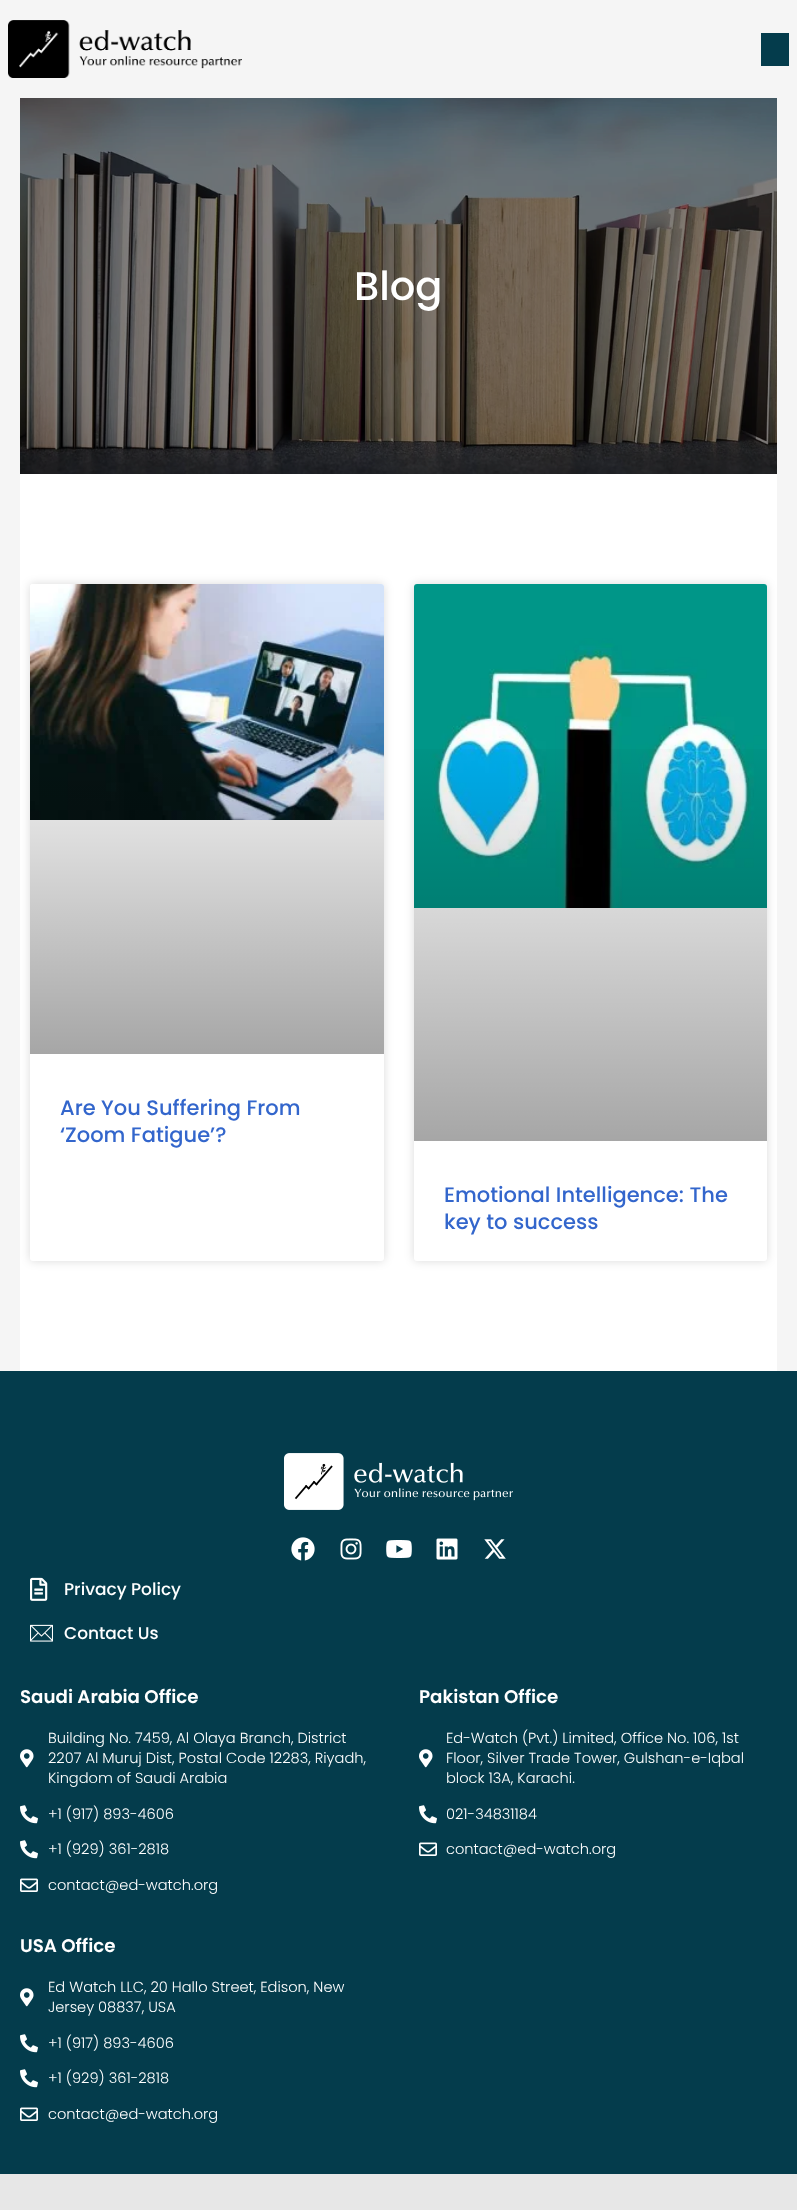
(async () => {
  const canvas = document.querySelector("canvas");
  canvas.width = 797;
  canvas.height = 2210;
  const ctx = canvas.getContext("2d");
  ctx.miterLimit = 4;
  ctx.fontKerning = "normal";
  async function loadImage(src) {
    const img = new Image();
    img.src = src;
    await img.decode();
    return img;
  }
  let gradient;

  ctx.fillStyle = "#f5f5f5";
  ctx.fillRect(0, 0, 797, 2210);
  ctx.drawImage(await loadImage("img/1.png"), 8, 20, 234, 58);
  ctx.fillStyle = "#043c4c";
  ctx.fillRect(761, 33, 28, 33);
  ctx.drawImage(await loadImage("img/2.png"), 20, 98, 757, 376);
  ctx.fillStyle = "#ffffff";
  ctx.fillRect(20, 474, 757, 897);
  ctx.fillStyle = "rgba(0, 0, 0, 0.15)";
  ctx.filter = "blur(5px)";
  ctx.beginPath();
  ctx.roundRect(30, 584, 354, 677, 3);
  ctx.fill();
  ctx.filter = "none";
  ctx.fillStyle = "#ffffff";
  ctx.beginPath();
  ctx.roundRect(30, 584, 354, 677, 3);
  ctx.fill();
  ctx.drawImage(await loadImage("img/3.png"), 30, 584, 354, 236);
  gradient = ctx.createLinearGradient(207, 1054, 207, 584);
  gradient.addColorStop(0, "rgba(0, 0, 0, 0.35)");
  gradient.addColorStop(0.75, "rgba(0, 0, 0, 0)");
  ctx.fillStyle = gradient;
  ctx.fillRect(30, 723, 354, 331);
  ctx.fillStyle = "rgba(0, 0, 0, 0.15)";
  ctx.filter = "blur(5px)";
  ctx.beginPath();
  ctx.roundRect(414, 584, 353, 677, 3);
  ctx.fill();
  ctx.filter = "none";
  ctx.fillStyle = "#ffffff";
  ctx.beginPath();
  ctx.roundRect(414, 584, 353, 677, 3);
  ctx.fill();
  ctx.drawImage(await loadImage("img/4.png"), 414, 584, 353, 324);
  gradient = ctx.createLinearGradient(591, 1141, 591, 584);
  gradient.addColorStop(0, "rgba(0, 0, 0, 0.35)");
  gradient.addColorStop(0.75, "rgba(0, 0, 0, 0)");
  ctx.fillStyle = gradient;
  ctx.fillRect(414, 749, 353, 392);
  ctx.fillStyle = "#043c4c";
  ctx.fillRect(0, 1371, 797, 803);
  ctx.drawImage(await loadImage("img/5.png"), 284, 1453, 229, 57);
  ctx.drawImage(await loadImage("img/6.png"), 291, 1537, 24, 24);
  ctx.drawImage(await loadImage("img/7.png"), 340, 1538, 22, 22);
  ctx.drawImage(await loadImage("img/8.png"), 386, 1540, 26, 18);
  ctx.drawImage(await loadImage("img/9.png"), 436, 1538, 22, 22);
  ctx.drawImage(await loadImage("img/10.png"), 484, 1539, 22, 20);
  ctx.drawImage(await loadImage("img/11.png"), 30, 1577, 18, 24);
  ctx.drawImage(await loadImage("img/12.png"), 30, 1624, 23, 18);
  ctx.drawImage(await loadImage("img/13.png"), 20, 1749, 14, 19);
  ctx.drawImage(await loadImage("img/14.png"), 20, 1805, 18, 19);
  ctx.drawImage(await loadImage("img/14.png"), 20, 1840, 18, 19);
  ctx.drawImage(await loadImage("img/15.png"), 20, 1878, 18, 14);
  ctx.drawImage(await loadImage("img/13.png"), 419, 1749, 14, 19);
  ctx.drawImage(await loadImage("img/14.png"), 419, 1805, 18, 19);
  ctx.drawImage(await loadImage("img/15.png"), 419, 1842, 18, 14);
  ctx.drawImage(await loadImage("img/13.png"), 20, 1988, 14, 19);
  ctx.drawImage(await loadImage("img/14.png"), 20, 2034, 18, 19);
  ctx.drawImage(await loadImage("img/14.png"), 20, 2069, 18, 19);
  ctx.drawImage(await loadImage("img/15.png"), 20, 2107, 18, 14);
  ctx.fillStyle = "#e7e7e7";
  ctx.fillRect(0, 2174, 797, 36);
  ctx.font = "500 40px Poppins";
  ctx.fillStyle = "#ffffff";
  ctx.fillText("Blog", 354, 300);
  ctx.font = "500 21px Poppins";
  ctx.fillStyle = "#3366cc";
  for (const [text, x, y] of [
    ["Are You Suffering From", 60, 1115],
    ["‘Zoom Fatigue’?", 60, 1142],
    ["Emotional Intelligence: The", 444, 1202],
    ["key to success", 444, 1229],
  ]) {
    ctx.fillText(text, x, y);
  }
  ctx.font = "500 17px Poppins";
  ctx.fillStyle = "#ffffff";
  ctx.fillText("Privacy Policy", 64, 1595);
  ctx.fillText("Contact Us", 64, 1639);
  ctx.font = "600 18.25px Poppins";
  ctx.fillText("Saudi Arabia Office", 20, 1703);
  ctx.font = "300 14.6px Poppins";
  for (const [text, x, y] of [
    ["Building No. 7459, Al Olaya Branch, District", 48, 1743],
    ["2207 Al Muruj Dist, Postal Code 12283, Riyadh,", 48, 1763],
    ["Kingdom of Saudi Arabia", 48, 1783],
    ["+1 (917) 893-4606", 48, 1819],
    ["+1 (929) 361-2818", 48, 1854],
    ["contact@ed-watch.org", 48, 1890],
  ]) {
    ctx.fillText(text, x, y);
  }
  ctx.font = "600 18.25px Poppins";
  ctx.fillText("Pakistan Office", 419, 1703);
  ctx.font = "300 14.6px Poppins";
  for (const [text, x, y] of [
    ["Ed-Watch (Pvt.) Limited, Office No. 106, 1st", 446, 1743],
    ["Floor, Silver Trade Tower, Gulshan-e-Iqbal", 446, 1763],
    ["block 13A, Karachi.", 446, 1783],
    ["021-34831184", 446, 1819],
    ["contact@ed-watch.org", 446, 1854],
  ]) {
    ctx.fillText(text, x, y);
  }
  ctx.font = "600 18.25px Poppins";
  ctx.fillText("USA Office", 20, 1952);
  ctx.font = "300 14.6px Poppins";
  for (const [text, x, y] of [
    ["Ed Watch LLC, 20 Hallo Street, Edison, New", 48, 1992],
    ["Jersey 08837, USA", 48, 2012],
    ["+1 (917) 893-4606", 48, 2048],
    ["+1 (929) 361-2818", 48, 2083],
    ["contact@ed-watch.org", 48, 2119],
  ]) {
    ctx.fillText(text, x, y);
  }
})();
